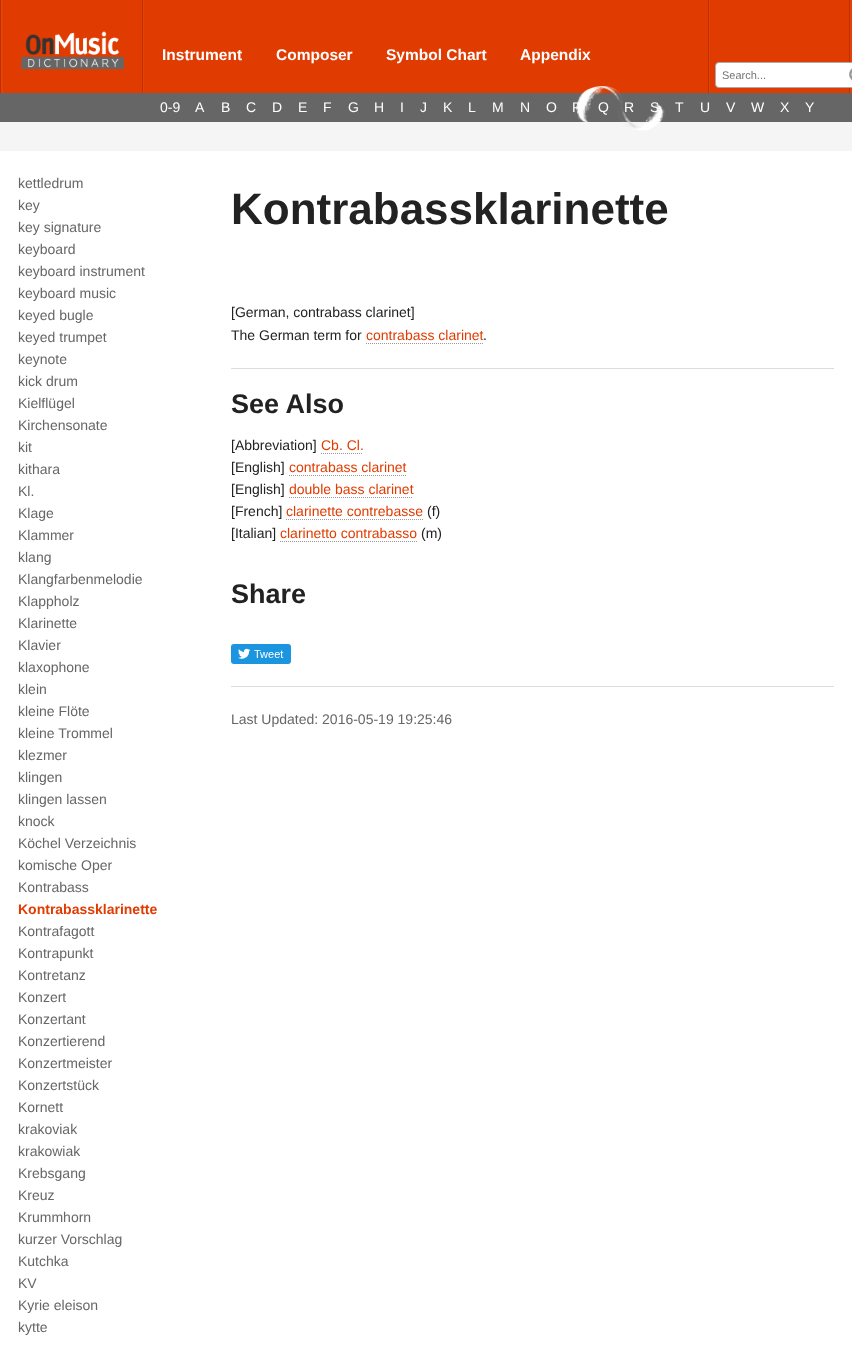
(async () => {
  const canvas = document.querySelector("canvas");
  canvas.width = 852;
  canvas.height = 1347;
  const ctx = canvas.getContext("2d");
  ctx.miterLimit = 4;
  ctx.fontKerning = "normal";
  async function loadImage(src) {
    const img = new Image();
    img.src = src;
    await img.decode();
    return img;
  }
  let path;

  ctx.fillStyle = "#f5f5f5";
  ctx.fillRect(0, 0, 852, 1347);
  for (const [x, y, w, h, color] of [
    [3, 0, 846, 93, "#e03b00"],
    [850, 0, 2, 93, "#e64208"],
    [0, 0, 1, 93, "#bb3100"],
    [1, 0, 2, 93, "#e64208"],
    [142, 0, 1, 93, "#bb3100"],
  ]) {
    ctx.fillStyle = color;
    ctx.fillRect(x, y, w, h);
  }
  ctx.drawImage(await loadImage("img/1.png"), 21, 31, 103, 38);
  for (const [x, y, w, h, color] of [
    [708, 0, 1, 93, "#bb3100"],
    [143, 0, 1, 93, "#e64208"],
    [0, 93, 852, 29, "#666666"],
  ]) {
    ctx.fillStyle = color;
    ctx.fillRect(x, y, w, h);
  }
  ctx.drawImage(await loadImage("img/2.png"), 575, 86, 91, 45);
  ctx.fillStyle = "#bb3100";
  ctx.fillRect(849, 0, 1, 93);
  ctx.fillStyle = "#e64208";
  ctx.fillRect(709, 0, 1, 93);
  ctx.fillStyle = "#ffffff";
  ctx.beginPath();
  ctx.roundRect(715.5, 62.5, 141, 25, 3.5);
  ctx.fill();
  ctx.strokeStyle = "#aaaaaa";
  ctx.stroke();
  ctx.drawImage(await loadImage("img/3.png"), 849, 68, 3, 13);
  ctx.fillRect(0, 151, 852, 1196);
  path = new Path2D("M366 343.5H483");
  ctx.strokeStyle = "#999999";
  ctx.setLineDash([1, 1]);
  ctx.stroke(path);
  ctx.fillStyle = "#dddddd";
  ctx.fillRect(231, 368, 603, 1);
  path = new Path2D("M321 453.5H363");
  ctx.stroke(path);
  path = new Path2D("M289 475.5H406");
  ctx.stroke(path);
  path = new Path2D("M289 497.5H413");
  ctx.stroke(path);
  path = new Path2D("M286 519.5H423");
  ctx.stroke(path);
  path = new Path2D("M280 541.5H417");
  ctx.stroke(path);
  ctx.drawImage(await loadImage("img/4.png"), 231, 644, 60, 20);
  ctx.fillRect(231, 686, 603, 1);
  ctx.font = "bold 15.5px Liberation Sans";
  ctx.fillStyle = "#ffffff";
  for (const [text, x, y] of [
    ["Instrument", 162, 60],
    ["Composer", 276, 60],
    ["Symbol Chart", 386, 60],
    ["Appendix", 520, 60],
  ]) {
    ctx.fillText(text, x, y);
  }
  ctx.font = "11px Liberation Sans";
  ctx.fillStyle = "#757575";
  ctx.fillText("Search...", 722, 79);
  ctx.font = "14px Liberation Sans";
  ctx.fillStyle = "#ffffff";
  for (const [text, x, y] of [
    ["0-9", 160, 112],
    ["A", 195, 112],
    ["B", 221, 112],
    ["C", 246, 112],
    ["D", 272, 112],
    ["E", 298, 112],
    ["F", 323, 112],
    ["G", 348, 112],
    ["H", 374, 112],
    ["I", 400, 112],
    ["J", 420, 112],
    ["K", 443, 112],
    ["L", 468, 112],
    ["M", 492, 112],
    ["N", 520, 112],
    ["O", 546, 112],
    ["P", 572, 112],
    ["Q", 598, 112],
    ["R", 624, 112],
    ["S", 650, 112],
    ["T", 675, 112],
    ["U", 700, 112],
    ["V", 726, 112],
    ["W", 751, 112],
    ["X", 780, 112],
    ["Y", 805, 112],
  ]) {
    ctx.fillText(text, x, y);
  }
  ctx.fillStyle = "#666666";
  for (const [text, x, y] of [
    ["kettledrum", 18, 188],
    ["key", 18, 210],
    ["key signature", 18, 232],
    ["keyboard", 18, 254],
    ["keyboard instrument", 18, 276],
    ["keyboard music", 18, 298],
    ["keyed bugle", 18, 320],
    ["keyed trumpet", 18, 342],
    ["keynote", 18, 364],
    ["kick drum", 18, 386],
    ["Kielflügel", 18, 408],
    ["Kirchensonate", 18, 430],
    ["kit", 18, 452],
    ["kithara", 18, 474],
    ["Kl.", 18, 496],
    ["Klage", 18, 518],
    ["Klammer", 18, 540],
    ["klang", 18, 562],
    ["Klangfarbenmelodie", 18, 584],
    ["Klappholz", 18, 606],
    ["Klarinette", 18, 628],
    ["Klavier", 18, 650],
    ["klaxophone", 18, 672],
    ["klein", 18, 694],
    ["kleine Flöte", 18, 716],
    ["kleine Trommel", 18, 738],
    ["klezmer", 18, 760],
    ["klingen", 18, 782],
    ["klingen lassen", 18, 804],
    ["knock", 18, 826],
    ["Köchel Verzeichnis", 18, 848],
    ["komische Oper", 18, 870],
    ["Kontrabass", 18, 892],
  ]) {
    ctx.fillText(text, x, y);
  }
  ctx.font = "bold 14px Liberation Sans";
  ctx.fillStyle = "#e03b00";
  ctx.fillText("Kontrabassklarinette", 18, 914);
  ctx.font = "14px Liberation Sans";
  ctx.fillStyle = "#666666";
  for (const [text, x, y] of [
    ["Kontrafagott", 18, 936],
    ["Kontrapunkt", 18, 958],
    ["Kontretanz", 18, 980],
    ["Konzert", 18, 1002],
    ["Konzertant", 18, 1024],
    ["Konzertierend", 18, 1046],
    ["Konzertmeister", 18, 1068],
    ["Konzertstück", 18, 1090],
    ["Kornett", 18, 1112],
    ["krakoviak", 18, 1134],
    ["krakowiak", 18, 1156],
    ["Krebsgang", 18, 1178],
    ["Kreuz", 18, 1200],
    ["Krummhorn", 18, 1222],
    ["kurzer Vorschlag", 18, 1244],
    ["Kutchka", 18, 1266],
    ["KV", 18, 1288],
    ["Kyrie eleison", 18, 1310],
    ["kytte", 18, 1332],
  ]) {
    ctx.fillText(text, x, y);
  }
  ctx.font = "bold 44px Liberation Sans";
  ctx.fillStyle = "#222222";
  ctx.fillText("Kontrabassklarinette", 231, 224);
  ctx.font = "14px Liberation Sans";
  ctx.fillText("[German, contrabass clarinet]", 231, 317);
  ctx.fillText("The German term for", 231, 340);
  ctx.fillStyle = "#e03b00";
  ctx.fillText("contrabass clarinet", 366, 340);
  ctx.fillStyle = "#222222";
  ctx.fillText(".", 483, 340);
  ctx.font = "bold 27px Liberation Sans";
  ctx.fillText("See Also", 231, 413);
  ctx.font = "14px Liberation Sans";
  ctx.fillText("[Abbreviation]", 231, 450);
  ctx.fillStyle = "#e03b00";
  ctx.fillText("Cb. Cl.", 321, 450);
  ctx.fillStyle = "#222222";
  ctx.fillText("[English]", 231, 472);
  ctx.fillStyle = "#e03b00";
  ctx.fillText("contrabass clarinet", 289, 472);
  ctx.fillStyle = "#222222";
  ctx.fillText("[English]", 231, 494);
  ctx.fillStyle = "#e03b00";
  ctx.fillText("double bass clarinet", 289, 494);
  ctx.fillStyle = "#222222";
  ctx.fillText("[French]", 231, 516);
  ctx.fillStyle = "#e03b00";
  ctx.fillText("clarinette contrebasse", 286, 516);
  ctx.fillStyle = "#222222";
  ctx.fillText("(f)", 427, 516);
  ctx.fillText("[Italian]", 231, 538);
  ctx.fillStyle = "#e03b00";
  ctx.fillText("clarinetto contrabasso", 280, 538);
  ctx.fillStyle = "#222222";
  ctx.fillText("(m)", 421, 538);
  ctx.font = "bold 27px Liberation Sans";
  ctx.fillText("Share", 231, 603);
  ctx.font = "14px Liberation Sans";
  ctx.fillStyle = "#666666";
  ctx.fillText("Last Updated: 2016-05-19 19:25:46", 231, 724);
})();
